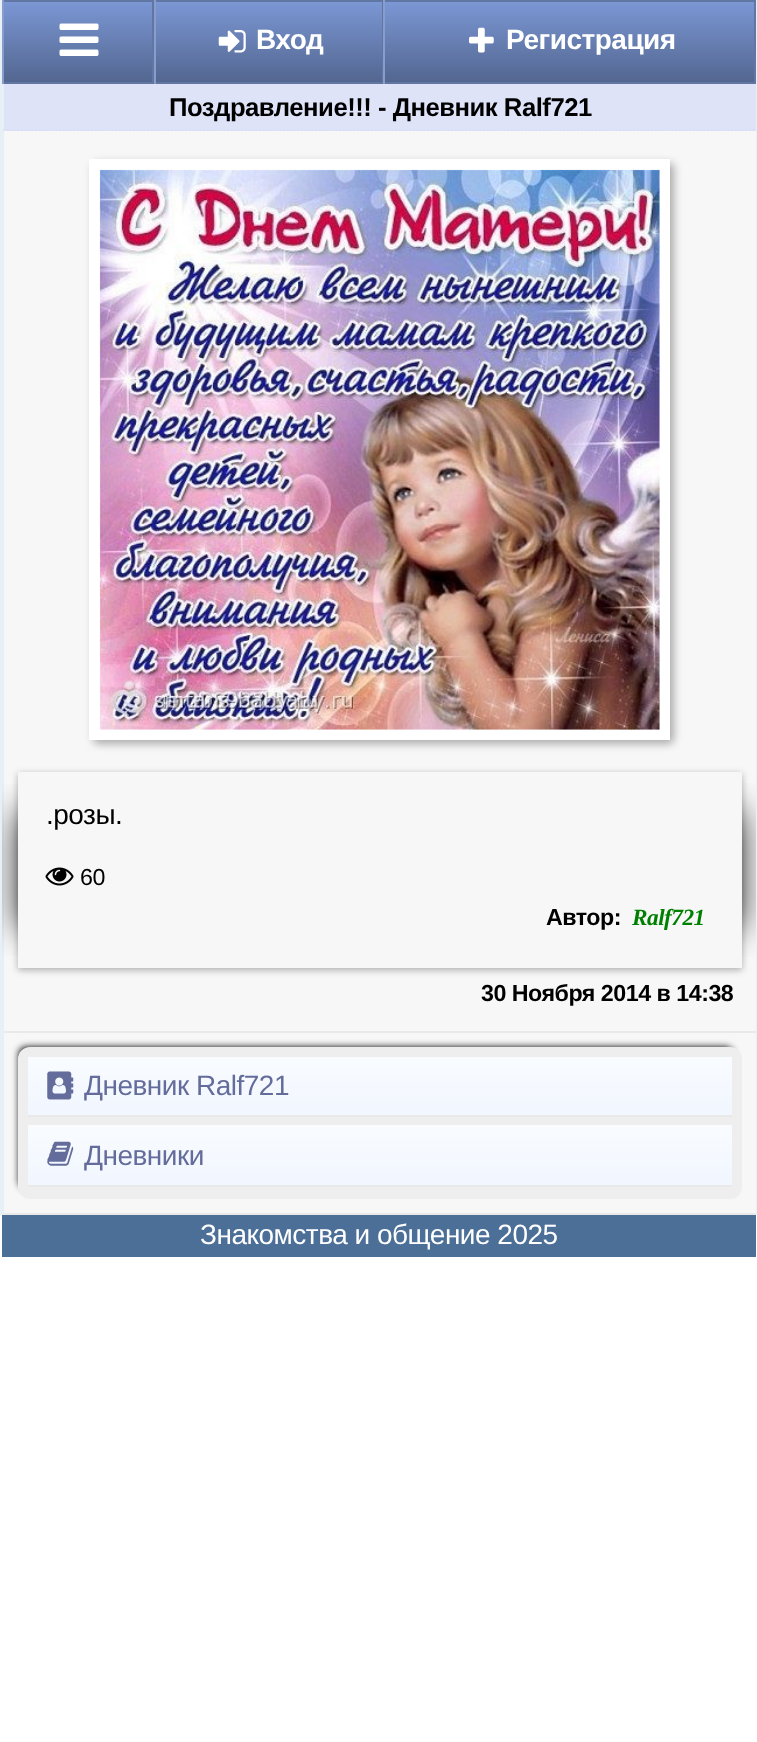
(async () => {
  const canvas = document.querySelector("canvas");
  canvas.width = 757;
  canvas.height = 1742;
  const ctx = canvas.getContext("2d");
  ctx.miterLimit = 4;
  ctx.fontKerning = "normal";
  async function loadImage(src) {
    const img = new Image();
    img.src = src;
    await img.decode();
    return img;
  }
  let gradient, path;

  ctx.fillStyle = "#ffffff";
  ctx.fillRect(0, 0, 757, 1742);
  ctx.fillStyle = "#e7f0f6";
  ctx.fillRect(756, 0, 1, 1215);
  ctx.fillRect(0, 0, 2, 1215);
  gradient = ctx.createLinearGradient(1.8, 0, 1.8, 84);
  gradient.addColorStop(0, "#7c98d6");
  gradient.addColorStop(1, "#52658e");
  ctx.fillStyle = gradient;
  ctx.fillRect(4, 2, 750, 80);
  for (const [x, y, w, h, color] of [
    [2, 0, 754, 2, "#6176a3"],
    [152, 0, 2, 84, "#6176a3"],
    [2, 82, 152, 2, "#6176a3"],
    [2, 0, 2, 84, "#869dce"],
  ]) {
    ctx.fillStyle = color;
    ctx.fillRect(x, y, w, h);
  }
  ctx.drawImage(await loadImage("img/1.png"), 59, 23, 40, 33);
  for (const [x, y, w, h, color] of [
    [382, 0, 1, 84, "#6176a3"],
    [154, 82, 229, 2, "#6176a3"],
    [154, 0, 2, 84, "#869dce"],
  ]) {
    ctx.fillStyle = color;
    ctx.fillRect(x, y, w, h);
  }
  ctx.drawImage(await loadImage("img/2.png"), 218, 30, 28, 23);
  for (const [x, y, w, h, color] of [
    [754, 0, 2, 84, "#6176a3"],
    [383, 82, 373, 2, "#6176a3"],
    [383, 0, 2, 84, "#869dce"],
  ]) {
    ctx.fillStyle = color;
    ctx.fillRect(x, y, w, h);
  }
  ctx.drawImage(await loadImage("img/3.png"), 469, 27, 25, 26);
  ctx.fillStyle = "#e7f0f6";
  ctx.fillRect(2, 84, 2, 1131);
  ctx.fillStyle = "#dee3f8";
  ctx.fillRect(4, 84, 752, 47);
  path = new Path2D("M3.5 130.5H756");
  ctx.strokeStyle = "#d5dcf4";
  ctx.lineWidth = 1.8;
  ctx.setLineDash([1.75, 1.75]);
  ctx.stroke(path);
  ctx.fillStyle = "#f7f7f7";
  ctx.fillRect(4, 131, 752, 900);
  ctx.fillStyle = "#e9e9e9";
  ctx.fillRect(4, 1031, 752, 2);
  ctx.fillStyle = "rgba(0, 0, 0, 0.3)";
  ctx.filter = "blur(4.5px)";
  ctx.beginPath();
  ctx.roundRect(93, 163, 581, 581, 5);
  ctx.fill();
  ctx.filter = "none";
  ctx.beginPath();
  ctx.rect(94.5, 164.5, 570, 570);
  ctx.strokeStyle = "#ffffff";
  ctx.lineWidth = 11;
  ctx.setLineDash([]);
  ctx.stroke();
  ctx.drawImage(await loadImage("img/4.png"), 99, 169, 561, 561);
  ctx.save();
  ctx.beginPath();
  ctx.rect(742, 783, 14, 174);
  ctx.clip();
  ctx.fillStyle = "rgba(0, 0, 0, 0.8)";
  ctx.filter = "blur(17.5px)";
  ctx.beginPath();
  ctx.rect(98, 812, 644, 116);
  ctx.fill();
  ctx.filter = "none";
  ctx.restore();
  ctx.save();
  ctx.beginPath();
  ctx.rect(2, 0, 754, 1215);
  ctx.clip();
  ctx.beginPath();
  ctx.rect(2, 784, 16, 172);
  ctx.clip();
  ctx.fillStyle = "rgba(0, 0, 0, 0.8)";
  ctx.filter = "blur(17.5px)";
  ctx.beginPath();
  ctx.rect(18, 812, 644, 116);
  ctx.fill();
  ctx.filter = "none";
  ctx.restore();
  ctx.save();
  path = new Path2D("M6 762H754V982H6ZM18 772H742V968H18Z");
  ctx.clip(path, "evenodd");
  ctx.filter = "blur(3.5px)";
  ctx.beginPath();
  ctx.rect(18, 774, 724, 196);
  ctx.fill();
  ctx.filter = "none";
  ctx.restore();
  ctx.drawImage(await loadImage("img/5.png"), 45, 867, 29, 19);
  ctx.fillStyle = "#f7f7f7";
  ctx.fillRect(4, 1033, 752, 180);
  ctx.fillStyle = "#e9e9e9";
  ctx.fillRect(4, 1213, 752, 2);
  ctx.fillStyle = "#000000";
  ctx.filter = "blur(3.5px)";
  ctx.beginPath();
  ctx.roundRect(19, 1047, 714, 141, 7);
  ctx.fill();
  ctx.filter = "none";
  ctx.fillStyle = "#eeeeee";
  ctx.beginPath();
  ctx.roundRect(18, 1047, 724, 152, 12);
  ctx.fill();
  gradient = ctx.createLinearGradient(28, 1057, 28, 1115);
  gradient.addColorStop(0, "#f9fcff");
  gradient.addColorStop(1, "#f1f6ff");
  ctx.fillStyle = gradient;
  ctx.fillRect(28, 1057, 704, 58);
  ctx.fillStyle = "#e9e9e9";
  ctx.fillRect(28, 1115, 704, 2);
  ctx.drawImage(await loadImage("img/6.png"), 47, 1071, 27, 29);
  gradient = ctx.createLinearGradient(28, 1125, 28, 1185);
  gradient.addColorStop(0, "#f9fcff");
  gradient.addColorStop(1, "#f1f6ff");
  ctx.fillStyle = gradient;
  ctx.fillRect(28, 1125, 704, 60);
  ctx.fillStyle = "#e9e9e9";
  ctx.fillRect(28, 1185, 704, 2);
  ctx.drawImage(await loadImage("img/7.png"), 47, 1141, 27, 25);
  ctx.fillStyle = "#4c6f97";
  ctx.fillRect(2, 1215, 754, 42);
  ctx.letterSpacing = "-0.5px";
  ctx.font = "bold 28px Liberation Sans";
  ctx.fillStyle = "#ffffff";
  ctx.fillText("Вход", 256, 49);
  ctx.fillText("Регистрация", 506, 49);
  ctx.font = "bold 25.7px Liberation Sans";
  ctx.fillStyle = "#000000";
  ctx.fillText("Поздравление!!! - Дневник Ralf721", 169, 116);
  ctx.font = "28px Liberation Sans";
  ctx.fillText(".розы.", 46, 824);
  ctx.font = "23.25px Liberation Sans";
  ctx.fillText("60", 80, 885);
  ctx.font = "bold 23.25px Liberation Sans";
  ctx.fillText("Автор:", 546, 925);
  ctx.font = "italic bold 23.25px Liberation Serif";
  ctx.fillStyle = "#008000";
  ctx.fillText("Ralf721", 632, 925);
  ctx.font = "bold 23.25px Liberation Sans";
  ctx.fillStyle = "#000000";
  ctx.fillText("30 Ноября 2014 в 14:38", 481, 1001);
  ctx.font = "28px Liberation Sans";
  ctx.fillStyle = "#636c9b";
  ctx.fillText("Дневник Ralf721", 84, 1095);
  ctx.fillText("Дневники", 84, 1165);
  ctx.fillStyle = "#ffffff";
  ctx.fillText("Знакомства и общение 2025", 200, 1244);
})();
